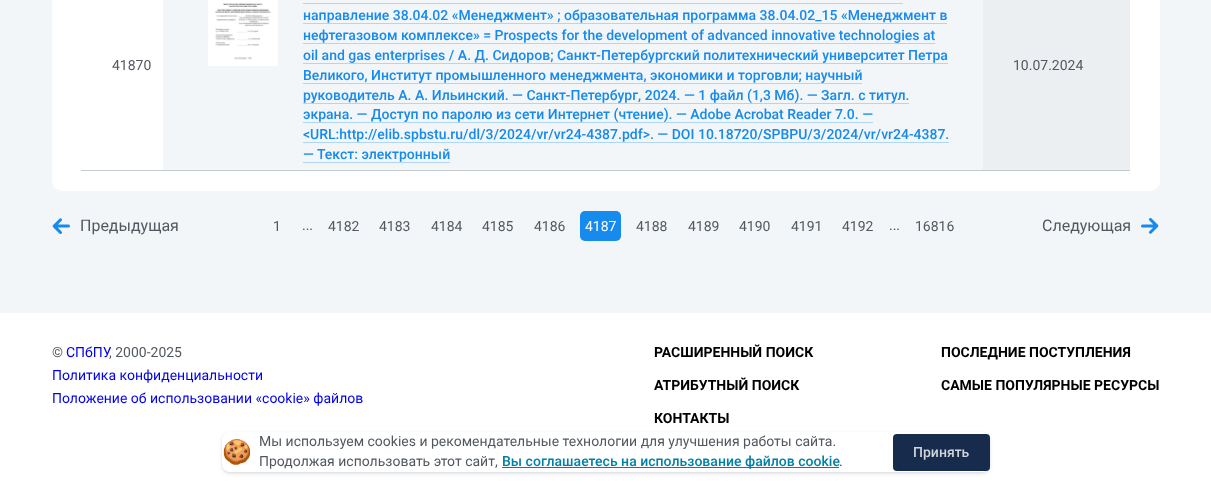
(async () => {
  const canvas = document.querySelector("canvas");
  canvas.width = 1211;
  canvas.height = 492;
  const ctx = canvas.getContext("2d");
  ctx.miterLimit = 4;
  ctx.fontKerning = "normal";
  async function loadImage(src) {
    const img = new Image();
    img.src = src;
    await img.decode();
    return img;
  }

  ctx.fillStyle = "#f3f6f8";
  ctx.fillRect(0, 0, 1211, 492);
  ctx.fillStyle = "#ffffff";
  ctx.beginPath();
  ctx.roundRect(52, -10, 1108, 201, 10);
  ctx.fill();
  ctx.fillStyle = "#f3f6f8";
  ctx.fillRect(163, 0, 820, 170);
  ctx.drawImage(await loadImage("img/1.png"), 208, 0, 70, 66);
  for (const [x, y, w, h, color] of [
    [303, 3, 600, 1, "#b1d6f5"],
    [303, 23, 644, 1, "#b1d6f5"],
    [303, 43, 632, 1, "#b1d6f5"],
    [303, 63, 645, 1, "#b1d6f5"],
    [303, 83, 559, 1, "#b1d6f5"],
    [303, 103, 606, 1, "#b1d6f5"],
    [303, 122, 570, 1, "#b1d6f5"],
    [303, 142, 646, 1, "#b1d6f5"],
    [303, 162, 147, 1, "#b1d6f5"],
    [983, 0, 147, 170, "#eceff1"],
    [81, 170, 1049, 1, "#c4cbd2"],
  ]) {
    ctx.fillStyle = color;
    ctx.fillRect(x, y, w, h);
  }
  ctx.drawImage(await loadImage("img/2.png"), 52, 218, 18, 16);
  ctx.fillStyle = "#168aed";
  ctx.beginPath();
  ctx.roundRect(580, 211, 41, 30, 5);
  ctx.fill();
  ctx.drawImage(await loadImage("img/3.png"), 1141, 218, 18, 16);
  ctx.fillStyle = "#ffffff";
  ctx.fillRect(0, 313, 1211, 179);
  ctx.fillStyle = "rgba(0, 0, 0, 0.07)";
  ctx.filter = "blur(1px)";
  ctx.beginPath();
  ctx.roundRect(222, 433, 768, 40, 8);
  ctx.fill();
  ctx.filter = "none";
  ctx.fillStyle = "rgba(10, 37, 64, 0.09)";
  ctx.filter = "blur(2px)";
  ctx.beginPath();
  ctx.roundRect(222, 434, 768, 40, 8);
  ctx.fill();
  ctx.filter = "none";
  ctx.fillStyle = "#ffffff";
  ctx.beginPath();
  ctx.roundRect(222, 432, 768, 40, 8);
  ctx.fill();
  ctx.fillStyle = "#0080a7";
  ctx.fillRect(502, 467, 337, 1);
  ctx.fillStyle = "#172b4d";
  ctx.beginPath();
  ctx.roundRect(893, 434, 97, 37, 4);
  ctx.fill();
  ctx.font = "14px Roboto";
  ctx.fillStyle = "#52585f";
  ctx.fillText("41870", 112, 70);
  ctx.font = "500 14px Roboto";
  ctx.fillStyle = "#168aed";
  for (const [text, x, y] of [
    ["направление 38.04.02 «Менеджмент» ; образовательная программа 38.04.02_15 «Менеджмент в", 303, 20],
    ["нефтегазовом комплексе» = Prospects for the development of advanced innovative technologies at", 303, 40],
    ["oil and gas enterprises / А. Д. Сидоров; Санкт-Петербургский политехнический университет Петра", 303, 60],
    ["Великого, Институт промышленного менеджмента, экономики и торговли; научный", 303, 80],
    ["руководитель А. А. Ильинский. — Санкт-Петербург, 2024. — 1 файл (1,3 Мб). — Загл. с титул.", 303, 100],
    ["экрана. — Доступ по паролю из сети Интернет (чтение). — Adobe Acrobat Reader 7.0. —", 303, 119],
    ["<URL:http://elib.spbstu.ru/dl/3/2024/vr/vr24-4387.pdf>. — DOI 10.18720/SPBPU/3/2024/vr/vr24-4387.", 303, 139],
    ["— Текст: электронный", 303, 159],
  ]) {
    ctx.fillText(text, x, y);
  }
  ctx.font = "14px Roboto";
  ctx.fillStyle = "#52585f";
  ctx.fillText("10.07.2024", 1013, 70);
  ctx.font = "16px Roboto";
  ctx.fillText("Предыдущая", 80, 231);
  ctx.font = "14px Roboto";
  for (const [text, x, y] of [
    ["1", 273, 231],
    ["...", 302, 230],
    ["4182", 328, 231],
    ["4183", 379, 231],
    ["4184", 431, 231],
    ["4185", 482, 231],
    ["4186", 534, 231],
  ]) {
    ctx.fillText(text, x, y);
  }
  ctx.fillStyle = "#ffffff";
  ctx.fillText("4187", 585, 231);
  ctx.fillStyle = "#52585f";
  for (const [text, x, y] of [
    ["4188", 636, 231],
    ["4189", 688, 231],
    ["4190", 739, 231],
    ["4191", 791, 231],
    ["4192", 842, 231],
    ["...", 889, 230],
    ["16816", 915, 231],
  ]) {
    ctx.fillText(text, x, y);
  }
  ctx.font = "16px Roboto";
  ctx.fillText("Следующая", 1042, 231);
  ctx.font = "14px Roboto";
  ctx.fillText("©", 52, 357);
  ctx.fillStyle = "#0000ee";
  ctx.fillText("СПбПУ", 66, 357);
  ctx.fillStyle = "#52585f";
  ctx.fillText(", 2000-2025", 109, 357);
  ctx.fillStyle = "#0000ee";
  ctx.fillText("Политика конфиденциальности", 52, 380);
  ctx.fillText("Положение об использовании «cookie» файлов", 52, 403);
  ctx.font = "bold 14px Roboto";
  ctx.fillStyle = "#000000";
  for (const [text, x, y] of [
    ["РАСШИРЕННЫЙ ПОИСК", 654, 357],
    ["АТРИБУТНЫЙ ПОИСК", 654, 390],
    ["КОНТАКТЫ", 654, 423],
    ["ПОСЛЕДНИЕ ПОСТУПЛЕНИЯ", 941, 357],
    ["САМЫЕ ПОПУЛЯРНЫЕ РЕСУРСЫ", 941, 390],
  ]) {
    ctx.fillText(text, x, y);
  }
  ctx.font = "24px Noto Color Emoji";
  ctx.fillStyle = "#52585f";
  ctx.fillText("🍪", 222, 460);
  ctx.font = "14px Roboto";
  ctx.fillText("Мы используем cookies и рекомендательные технологии для улучшения работы сайта.", 259, 446);
  ctx.fillText("Продолжая использовать этот сайт,", 259, 466);
  ctx.font = "500 14px Roboto";
  ctx.fillStyle = "#0080a7";
  ctx.fillText("Вы соглашаетесь на использование файлов cookie", 502, 466);
  ctx.font = "14px Roboto";
  ctx.fillStyle = "#52585f";
  ctx.fillText(".", 839, 466);
  ctx.font = "500 14px Roboto";
  ctx.fillStyle = "#d1d5db";
  ctx.fillText("Принять", 913, 457);
})();
